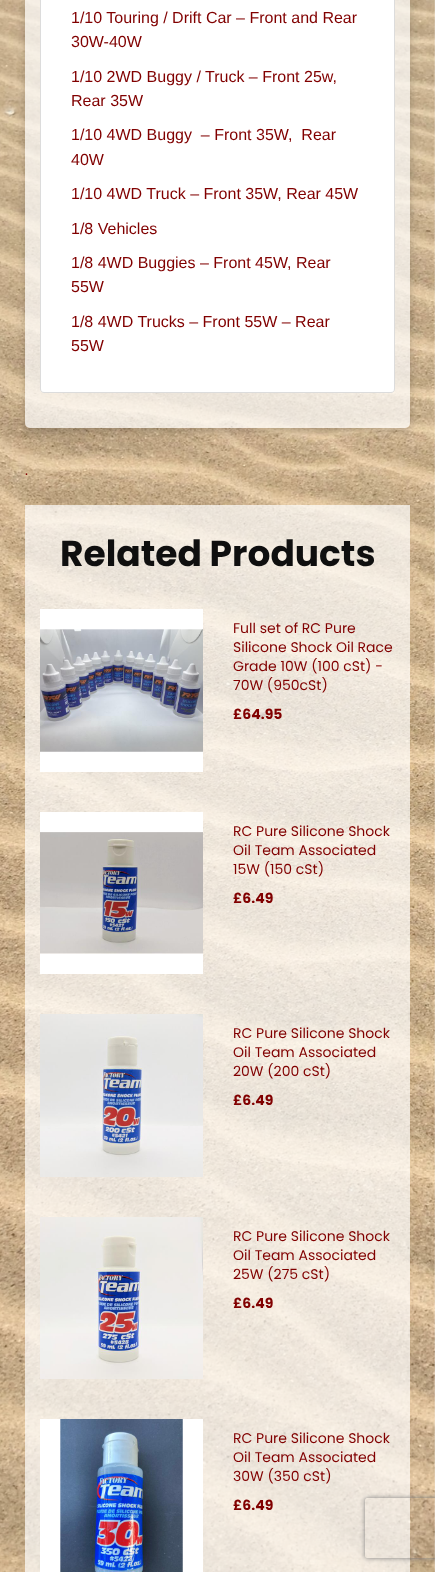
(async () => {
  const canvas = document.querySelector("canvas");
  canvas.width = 435;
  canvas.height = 1572;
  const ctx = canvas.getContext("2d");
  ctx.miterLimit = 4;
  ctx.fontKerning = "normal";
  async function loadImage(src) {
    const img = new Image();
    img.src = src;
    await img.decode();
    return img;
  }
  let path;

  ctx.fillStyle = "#ffffff";
  ctx.fillRect(0, 0, 435, 1572);
  ctx.drawImage(await loadImage("img/1.png"), 0, 0, 435, 1572);
  ctx.save();
  path = new Path2D("M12 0H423V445H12ZM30-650H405C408-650 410-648 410-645V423C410 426 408 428 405 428H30C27 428 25 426 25 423V-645C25-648 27-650 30-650Z");
  ctx.clip(path, "evenodd");
  ctx.fillStyle = "rgba(0, 0, 0, 0.2)";
  ctx.filter = "blur(4px)";
  ctx.beginPath();
  ctx.roundRect(25, -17, 385, 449, 5);
  ctx.fill();
  ctx.filter = "none";
  ctx.restore();
  ctx.fillStyle = "rgba(255, 255, 255, 0.7)";
  ctx.beginPath();
  ctx.roundRect(25, -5, 385, 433, 5);
  ctx.fill();
  ctx.fillStyle = "#ffffff";
  path = new Path2D("M40.5-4.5H394.5V389C394.5 391 393 392.5 391 392.5H44C42 392.5 40.5 391 40.5 389Z");
  ctx.fill(path);
  ctx.strokeStyle = "#dcdcdc";
  ctx.stroke(path);
  ctx.fillStyle = "rgba(255, 255, 255, 0.7)";
  ctx.fillRect(25, 505, 385, 1067);
  ctx.drawImage(await loadImage("img/2.png"), 40, 609, 163, 163);
  ctx.drawImage(await loadImage("img/3.png"), 40, 812, 163, 162);
  ctx.drawImage(await loadImage("img/4.png"), 40, 1014, 163, 163);
  ctx.drawImage(await loadImage("img/5.png"), 40, 1217, 163, 162);
  ctx.drawImage(await loadImage("img/6.png"), 40, 1419, 163, 153);
  ctx.save();
  path = new Path2D("M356 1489H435V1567H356ZM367 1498H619C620 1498 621 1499 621 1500V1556C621 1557 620 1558 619 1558H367C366 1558 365 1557 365 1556V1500C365 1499 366 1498 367 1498Z");
  ctx.clip(path, "evenodd");
  ctx.fillStyle = "#808080";
  ctx.filter = "blur(2.5px)";
  ctx.beginPath();
  ctx.roundRect(365, 1498, 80, 60, 2);
  ctx.fill();
  ctx.filter = "none";
  ctx.restore();
  ctx.font = "16px Liberation Sans";
  ctx.fillStyle = "#810000";
  for (const [text, x, y] of [
    ["1/10 Touring / Drift Car – Front and Rear", 71, 23],
    ["30W-40W", 71, 47],
    ["1/10 2WD Buggy / Truck – Front 25w,", 71, 82],
    ["Rear 35W", 71, 106],
    ["1/10 4WD Buggy  – Front 35W,  Rear", 71, 140],
    ["40W", 71, 165],
    ["1/10 4WD Truck – Front 35W, Rear 45W", 71, 199],
    ["1/8 Vehicles", 71, 234],
    ["1/8 4WD Buggies – Front 45W, Rear", 71, 268],
    ["55W", 71, 292],
    ["1/8 4WD Trucks – Front 55W – Rear", 71, 327],
    ["55W", 71, 351],
  ]) {
    ctx.fillText(text, x, y);
  }
  ctx.font = "14px Poppins";
  ctx.fillText(".", 25, 475);
  ctx.font = "bold 36px Poppins";
  ctx.fillStyle = "#0f0f0f";
  ctx.fillText("Related Products", 60, 566);
  ctx.font = "14px Poppins";
  ctx.fillStyle = "#810000";
  for (const [text, x, y] of [
    ["Full set of RC Pure", 233, 633],
    ["Silicone Shock Oil Race", 233, 652],
    ["Grade 10W (100 cSt) -", 233, 671],
    ["70W (950cSt)", 233, 690],
  ]) {
    ctx.fillText(text, x, y);
  }
  ctx.font = "bold 14px Poppins";
  ctx.fillText("£64.95", 233, 719);
  ctx.font = "14px Poppins";
  for (const [text, x, y] of [
    ["RC Pure Silicone Shock", 233, 836],
    ["Oil Team Associated", 233, 855],
    ["15W (150 cSt)", 233, 874],
  ]) {
    ctx.fillText(text, x, y);
  }
  ctx.font = "bold 14px Poppins";
  ctx.fillText("£6.49", 233, 903);
  ctx.font = "14px Poppins";
  for (const [text, x, y] of [
    ["RC Pure Silicone Shock", 233, 1038],
    ["Oil Team Associated", 233, 1057],
    ["20W (200 cSt)", 233, 1076],
  ]) {
    ctx.fillText(text, x, y);
  }
  ctx.font = "bold 14px Poppins";
  ctx.fillText("£6.49", 233, 1105);
  ctx.font = "14px Poppins";
  for (const [text, x, y] of [
    ["RC Pure Silicone Shock", 233, 1241],
    ["Oil Team Associated", 233, 1260],
    ["25W (275 cSt)", 233, 1279],
  ]) {
    ctx.fillText(text, x, y);
  }
  ctx.font = "bold 14px Poppins";
  ctx.fillText("£6.49", 233, 1308);
  ctx.font = "14px Poppins";
  for (const [text, x, y] of [
    ["RC Pure Silicone Shock", 233, 1443],
    ["Oil Team Associated", 233, 1462],
    ["30W (350 cSt)", 233, 1481],
  ]) {
    ctx.fillText(text, x, y);
  }
  ctx.font = "bold 14px Poppins";
  ctx.fillText("£6.49", 233, 1510);
})();
